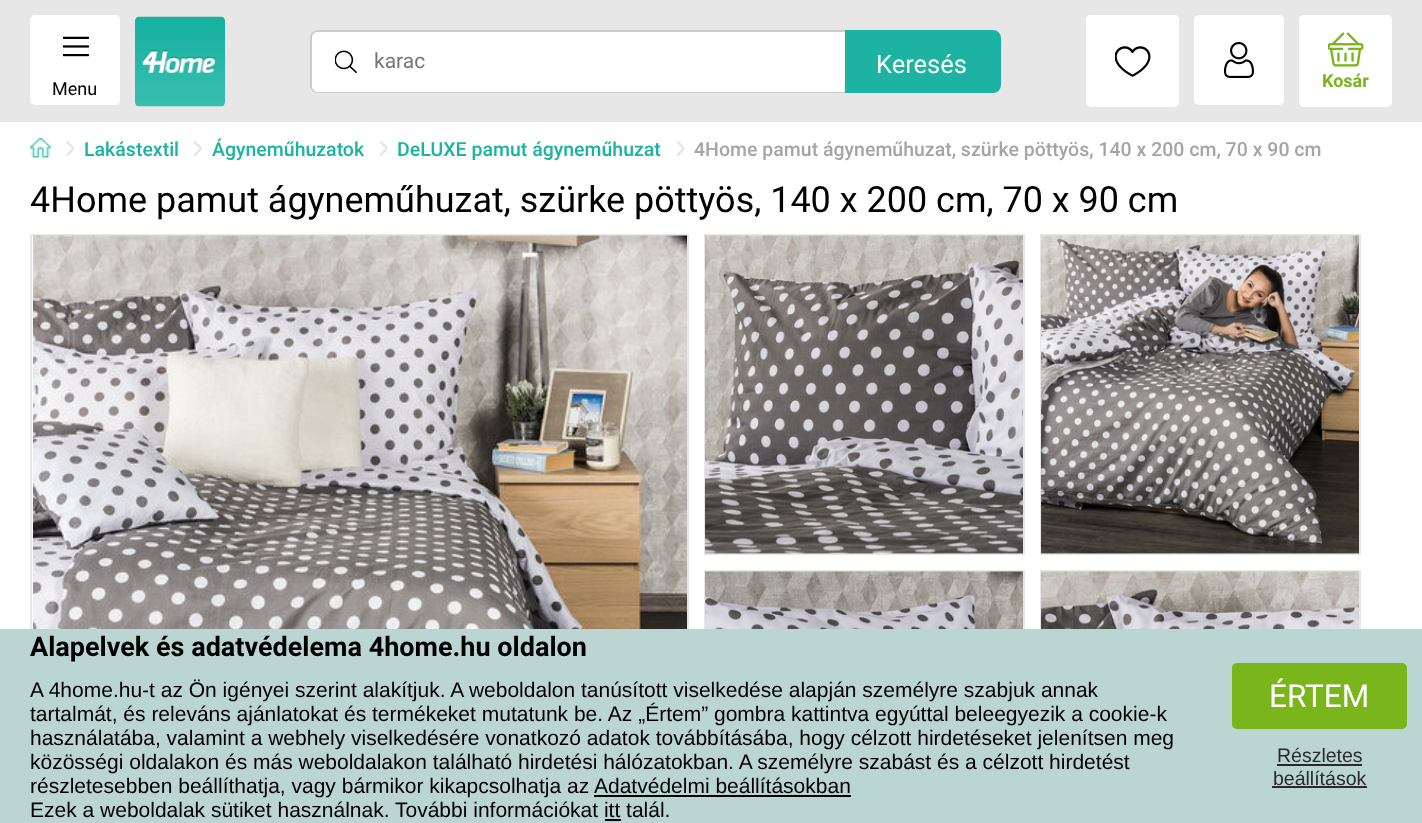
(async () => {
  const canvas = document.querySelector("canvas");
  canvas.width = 1422;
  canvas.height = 823;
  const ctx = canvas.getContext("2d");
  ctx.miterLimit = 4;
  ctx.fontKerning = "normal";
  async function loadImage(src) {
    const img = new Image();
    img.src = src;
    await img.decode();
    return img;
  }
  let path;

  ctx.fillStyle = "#ffffff";
  ctx.fillRect(0, 0, 1422, 823);
  ctx.fillStyle = "#e7e7e7";
  ctx.fillRect(0, 0, 1422, 122);
  ctx.fillStyle = "#ffffff";
  ctx.beginPath();
  ctx.roundRect(311, 30, 684, 63, [8, 0, 0, 8]);
  ctx.fill();
  ctx.drawImage(await loadImage("img/1.png"), 335, 50, 22, 23);
  ctx.fillStyle = "#cccccc";
  path = new Path2D("M318 30H994V93H318C314 93 310 90 310 86V38C310 33 314 30 318 30ZM318 32H994V92H318C315 92 312 89 312 86V38C312 34 315 32 318 32Z");
  ctx.fill(path, "evenodd");
  ctx.fillStyle = "#1cb3a2";
  ctx.beginPath();
  ctx.roundRect(846, 31, 154, 61, [0, 7, 7, 0]);
  ctx.fill();
  ctx.strokeStyle = "#1cb3a2";
  ctx.lineWidth = 2;
  ctx.stroke();
  ctx.fillStyle = "#ffffff";
  ctx.beginPath();
  ctx.roundRect(30, 15, 90, 90, 5);
  ctx.fill();
  ctx.drawImage(await loadImage("img/2.png"), 63, 36, 26, 21);
  ctx.drawImage(await loadImage("img/3.png"), 135, 16, 90, 91);
  ctx.beginPath();
  ctx.roundRect(1086, 15, 93, 92, 5);
  ctx.fill();
  path = new Path2D("M1090 15H1174C1177 15 1179 17 1179 20V102C1179 104 1177 106 1174 106H1090C1088 106 1086 104 1086 102V20C1086 17 1088 15 1090 15ZM1090 16H1174C1176 16 1178 18 1178 20V102C1178 104 1176 106 1174 106H1090C1089 106 1088 104 1088 102V20C1088 18 1089 16 1090 16Z");
  ctx.fill(path, "evenodd");
  ctx.drawImage(await loadImage("img/4.png"), 1115, 46, 36, 31);
  ctx.beginPath();
  ctx.roundRect(1195, 16, 88, 88, 4);
  ctx.fill();
  ctx.strokeStyle = "#ffffff";
  ctx.stroke();
  ctx.drawImage(await loadImage("img/5.png"), 1223, 42, 31, 36);
  ctx.beginPath();
  ctx.roundRect(1299, 15, 93, 92, 5);
  ctx.fill();
  path = new Path2D("M1304 15H1388C1390 15 1392 17 1392 20V102C1392 104 1390 106 1388 106H1304C1301 106 1299 104 1299 102V20C1299 17 1301 15 1304 15ZM1304 16H1388C1389 16 1390 18 1390 20V102C1390 104 1389 106 1388 106H1304C1302 106 1300 104 1300 102V20C1300 18 1302 16 1304 16Z");
  ctx.fill(path, "evenodd");
  ctx.drawImage(await loadImage("img/6.png"), 1328, 32, 36, 35);
  ctx.drawImage(await loadImage("img/7.png"), 30, 138, 21, 20);
  ctx.drawImage(await loadImage("img/8.png"), 66, 141, 8, 15);
  ctx.drawImage(await loadImage("img/9.png"), 193, 141, 9, 15);
  ctx.drawImage(await loadImage("img/10.png"), 379, 141, 8, 15);
  ctx.drawImage(await loadImage("img/11.png"), 676, 141, 8, 15);
  ctx.strokeStyle = "#e7e7e7";
  ctx.strokeRect(31, 235, 657, 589);
  ctx.drawImage(await loadImage("img/12.png"), 33, 235, 654, 394);
  ctx.strokeRect(705, 235, 319, 319);
  ctx.fillRect(705, 553, 318, 1);
  ctx.drawImage(await loadImage("img/13.png"), 705, 235, 318, 319);
  ctx.strokeRect(1041, 235, 319, 319);
  ctx.fillRect(1041, 553, 318, 1);
  ctx.drawImage(await loadImage("img/14.png"), 1041, 235, 318, 319);
  ctx.strokeRect(705, 571, 319, 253);
  ctx.drawImage(await loadImage("img/15.png"), 705, 571, 318, 58);
  ctx.strokeRect(1041, 571, 319, 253);
  ctx.drawImage(await loadImage("img/16.png"), 1041, 571, 318, 58);
  for (const [x, y, w, h, color] of [
    [0, 629, 1422, 194, "#bbd5d2"],
    [594, 795, 257, 2, "#000000"],
    [605, 819, 16, 2, "#000000"],
  ]) {
    ctx.fillStyle = color;
    ctx.fillRect(x, y, w, h);
  }
  ctx.fillStyle = "#7ab51c";
  ctx.beginPath();
  ctx.roundRect(1232, 663, 175, 66, 5);
  ctx.fill();
  ctx.fillStyle = "#2a2a2a";
  ctx.fillRect(1277, 764, 85, 2);
  ctx.fillRect(1272, 786, 95, 2);
  ctx.font = "21px Roboto";
  ctx.fillStyle = "#757575";
  ctx.fillText("karac", 374, 68);
  ctx.font = "25.5px Roboto";
  ctx.fillStyle = "#ffffff";
  ctx.fillText("Keresés", 876, 73);
  ctx.font = "18px Roboto";
  ctx.fillStyle = "#000000";
  ctx.fillText("Menu", 52, 95);
  ctx.font = "bold 18px Roboto";
  ctx.fillStyle = "#7ab51c";
  ctx.fillText("Kosár", 1322, 87);
  ctx.font = "500 19.5px Roboto";
  ctx.fillStyle = "#1cb3a2";
  for (const [text, x, y] of [
    ["Lakástextil", 84, 156],
    ["Ágyneműhuzatok", 212, 156],
    ["DeLUXE pamut ágyneműhuzat", 397, 156],
  ]) {
    ctx.fillText(text, x, y);
  }
  ctx.fillStyle = "#a5a5a5";
  ctx.fillText("4Home pamut ágyneműhuzat, szürke pöttyös, 140 x 200 cm, 70 x 90 cm", 694, 156);
  ctx.font = "36px Roboto";
  ctx.fillStyle = "#000000";
  ctx.fillText("4Home pamut ágyneműhuzat, szürke pöttyös, 140 x 200 cm, 70 x 90 cm", 30, 212);
  ctx.font = "bold 27px Roboto";
  ctx.fillText("Alapelvek és adatvédelema 4home.hu oldalon", 30, 656);
  ctx.font = "21px Liberation Sans";
  for (const [text, x, y] of [
    ["A 4home.hu-t az Ön igényei szerint alakítjuk. A weboldalon tanúsított viselkedése alapján személyre szabjuk annak", 30, 697],
    ["tartalmát, és releváns ajánlatokat és termékeket mutatunk be. Az „Értem” gombra kattintva egyúttal beleegyezik a cookie-k", 30, 721],
    ["használatába, valamint a webhely viselkedésére vonatkozó adatok továbbításába, hogy célzott hirdetéseket jelenítsen meg", 30, 745],
    ["közösségi oldalakon és más weboldalakon található hirdetési hálózatokban. A személyre szabást és a célzott hirdetést", 30, 769],
    ["részletesebben beállíthatja, vagy bármikor kikapcsolhatja az", 30, 793],
    ["Adatvédelmi beállításokban", 594, 793],
    ["Ezek a weboldalak sütiket használnak. További információkat itt talál.", 30, 817],
  ]) {
    ctx.fillText(text, x, y);
  }
  ctx.font = "31.5px Roboto";
  ctx.fillStyle = "#ffffff";
  ctx.fillText("ÉRTEM", 1269, 707);
  ctx.font = "19.5px Liberation Sans";
  ctx.fillStyle = "#2a2a2a";
  ctx.fillText("Részletes", 1277, 762);
  ctx.fillText("beállítások", 1273, 785);
})();
